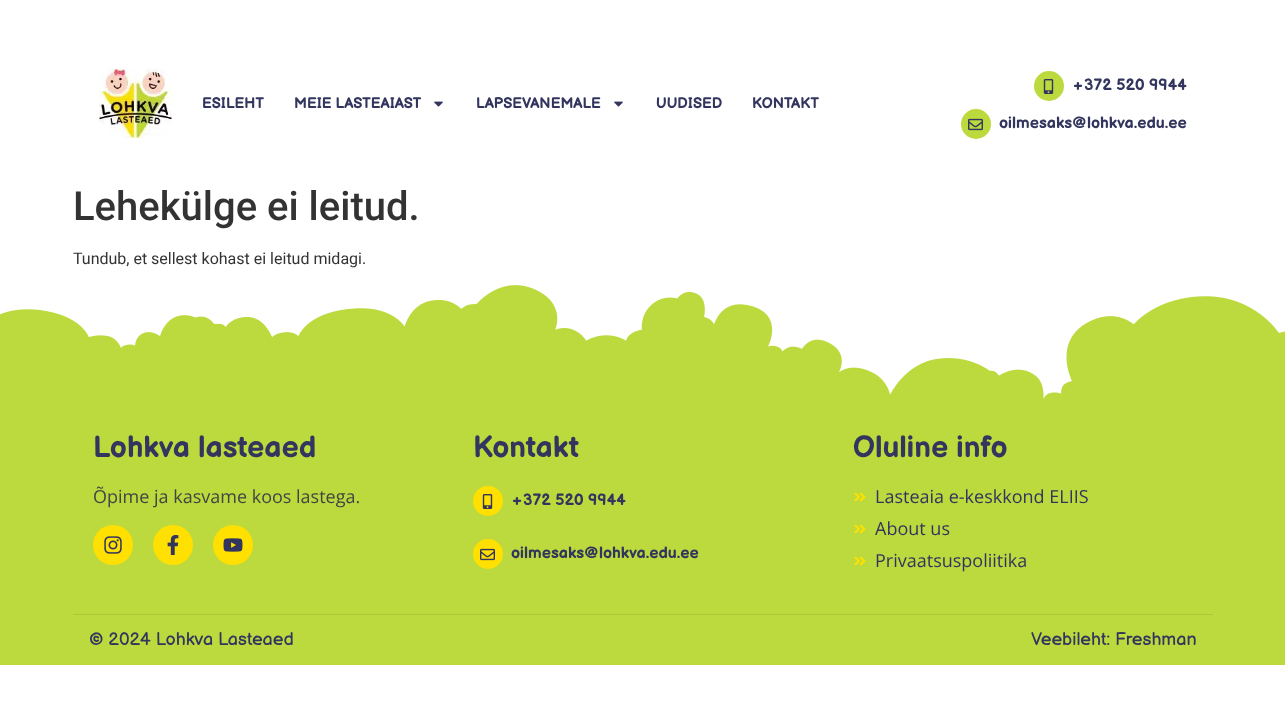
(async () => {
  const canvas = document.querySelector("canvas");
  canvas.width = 1285;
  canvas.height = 704;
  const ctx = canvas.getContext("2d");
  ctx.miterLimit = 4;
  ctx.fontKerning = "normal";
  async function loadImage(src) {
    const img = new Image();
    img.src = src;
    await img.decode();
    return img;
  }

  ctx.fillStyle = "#ffffff";
  ctx.fillRect(0, 0, 1285, 704);
  ctx.drawImage(await loadImage("img/1.png"), 99, 69, 73, 69);
  ctx.drawImage(await loadImage("img/2.png"), 434, 101, 9, 6);
  ctx.drawImage(await loadImage("img/2.png"), 614, 101, 9, 6);
  ctx.fillStyle = "#bcda3e";
  ctx.beginPath();
  ctx.arc(1049, 86, 15, 0, Math.PI * 2);
  ctx.fill();
  ctx.drawImage(await loadImage("img/3.png"), 1043, 79, 11, 15);
  ctx.beginPath();
  ctx.arc(976, 124, 15, 0, Math.PI * 2);
  ctx.fill();
  ctx.drawImage(await loadImage("img/4.png"), 968, 118, 15, 13);
  ctx.fillRect(0, 285, 1285, 380);
  ctx.drawImage(await loadImage("img/5.png"), 0, 285, 1285, 114);
  ctx.fillStyle = "#ffe000";
  ctx.beginPath();
  ctx.arc(113, 545, 20, 0, Math.PI * 2);
  ctx.fill();
  ctx.drawImage(await loadImage("img/6.png"), 104, 536, 18, 18);
  ctx.beginPath();
  ctx.arc(173, 545, 20, 0, Math.PI * 2);
  ctx.fill();
  ctx.drawImage(await loadImage("img/7.png"), 167, 535, 12, 20);
  ctx.beginPath();
  ctx.arc(233, 545, 20, 0, Math.PI * 2);
  ctx.fill();
  ctx.drawImage(await loadImage("img/8.png"), 223, 538, 20, 14);
  ctx.beginPath();
  ctx.arc(488, 501, 15, 0, Math.PI * 2);
  ctx.fill();
  ctx.drawImage(await loadImage("img/9.png"), 482, 494, 11, 15);
  ctx.beginPath();
  ctx.arc(488, 554, 15, 0, Math.PI * 2);
  ctx.fill();
  ctx.drawImage(await loadImage("img/10.png"), 480, 548, 15, 13);
  ctx.drawImage(await loadImage("img/11.png"), 854, 492, 12, 10);
  ctx.drawImage(await loadImage("img/11.png"), 854, 524, 12, 10);
  ctx.drawImage(await loadImage("img/11.png"), 854, 556, 12, 10);
  ctx.fillStyle = "#acc838";
  ctx.fillRect(73, 614, 1140, 1);
  ctx.font = "bold 15px Balsamiq Sans";
  ctx.fillStyle = "#32355d";
  for (const [text, x, y] of [
    ["ESILEHT", 202, 108],
    ["MEIE LASTEAIAST", 294, 108],
    ["LAPSEVANEMALE", 476, 108],
    ["UUDISED", 656, 108],
    ["KONTAKT", 752, 108],
  ]) {
    ctx.fillText(text, x, y);
  }
  ctx.font = "bold 16px Balsamiq Sans";
  ctx.fillText("+372 520 9944", 1072, 90);
  ctx.fillText("oilmesaks@lohkva.edu.ee", 999, 128);
  ctx.font = "500 40px Roboto";
  ctx.fillStyle = "#333333";
  ctx.fillText("Lehekülge ei leitud.", 73, 220);
  ctx.font = "16px Roboto";
  ctx.fillText("Tundub, et sellest kohast ei leitud midagi.", 73, 264);
  ctx.font = "bold 30px Balsamiq Sans";
  ctx.fillStyle = "#32355d";
  ctx.fillText("Lohkva lasteaed", 93, 457);
  ctx.font = "18px Open Sans";
  ctx.fillStyle = "#444444";
  ctx.fillText("Õpime ja kasvame koos lastega.", 93, 503);
  ctx.font = "bold 30px Balsamiq Sans";
  ctx.fillStyle = "#32355d";
  ctx.fillText("Kontakt", 473, 457);
  ctx.font = "bold 16px Balsamiq Sans";
  ctx.fillText("+372 520 9944", 511, 505);
  ctx.fillText("oilmesaks@lohkva.edu.ee", 511, 558);
  ctx.font = "bold 30px Balsamiq Sans";
  ctx.fillText("Oluline info", 853, 457);
  ctx.font = "18px Open Sans";
  for (const [text, x, y] of [
    ["Lasteaia e-keskkond ELIIS", 875, 503],
    ["About us", 875, 535],
    ["Privaatsuspoliitika", 875, 567],
  ]) {
    ctx.fillText(text, x, y);
  }
  ctx.font = "18px Balsamiq Sans";
  ctx.fillText("© 2024 Lohkva Lasteaed", 89, 645);
  ctx.fillText("Veebileht: Freshman", 1031, 645);
})();
